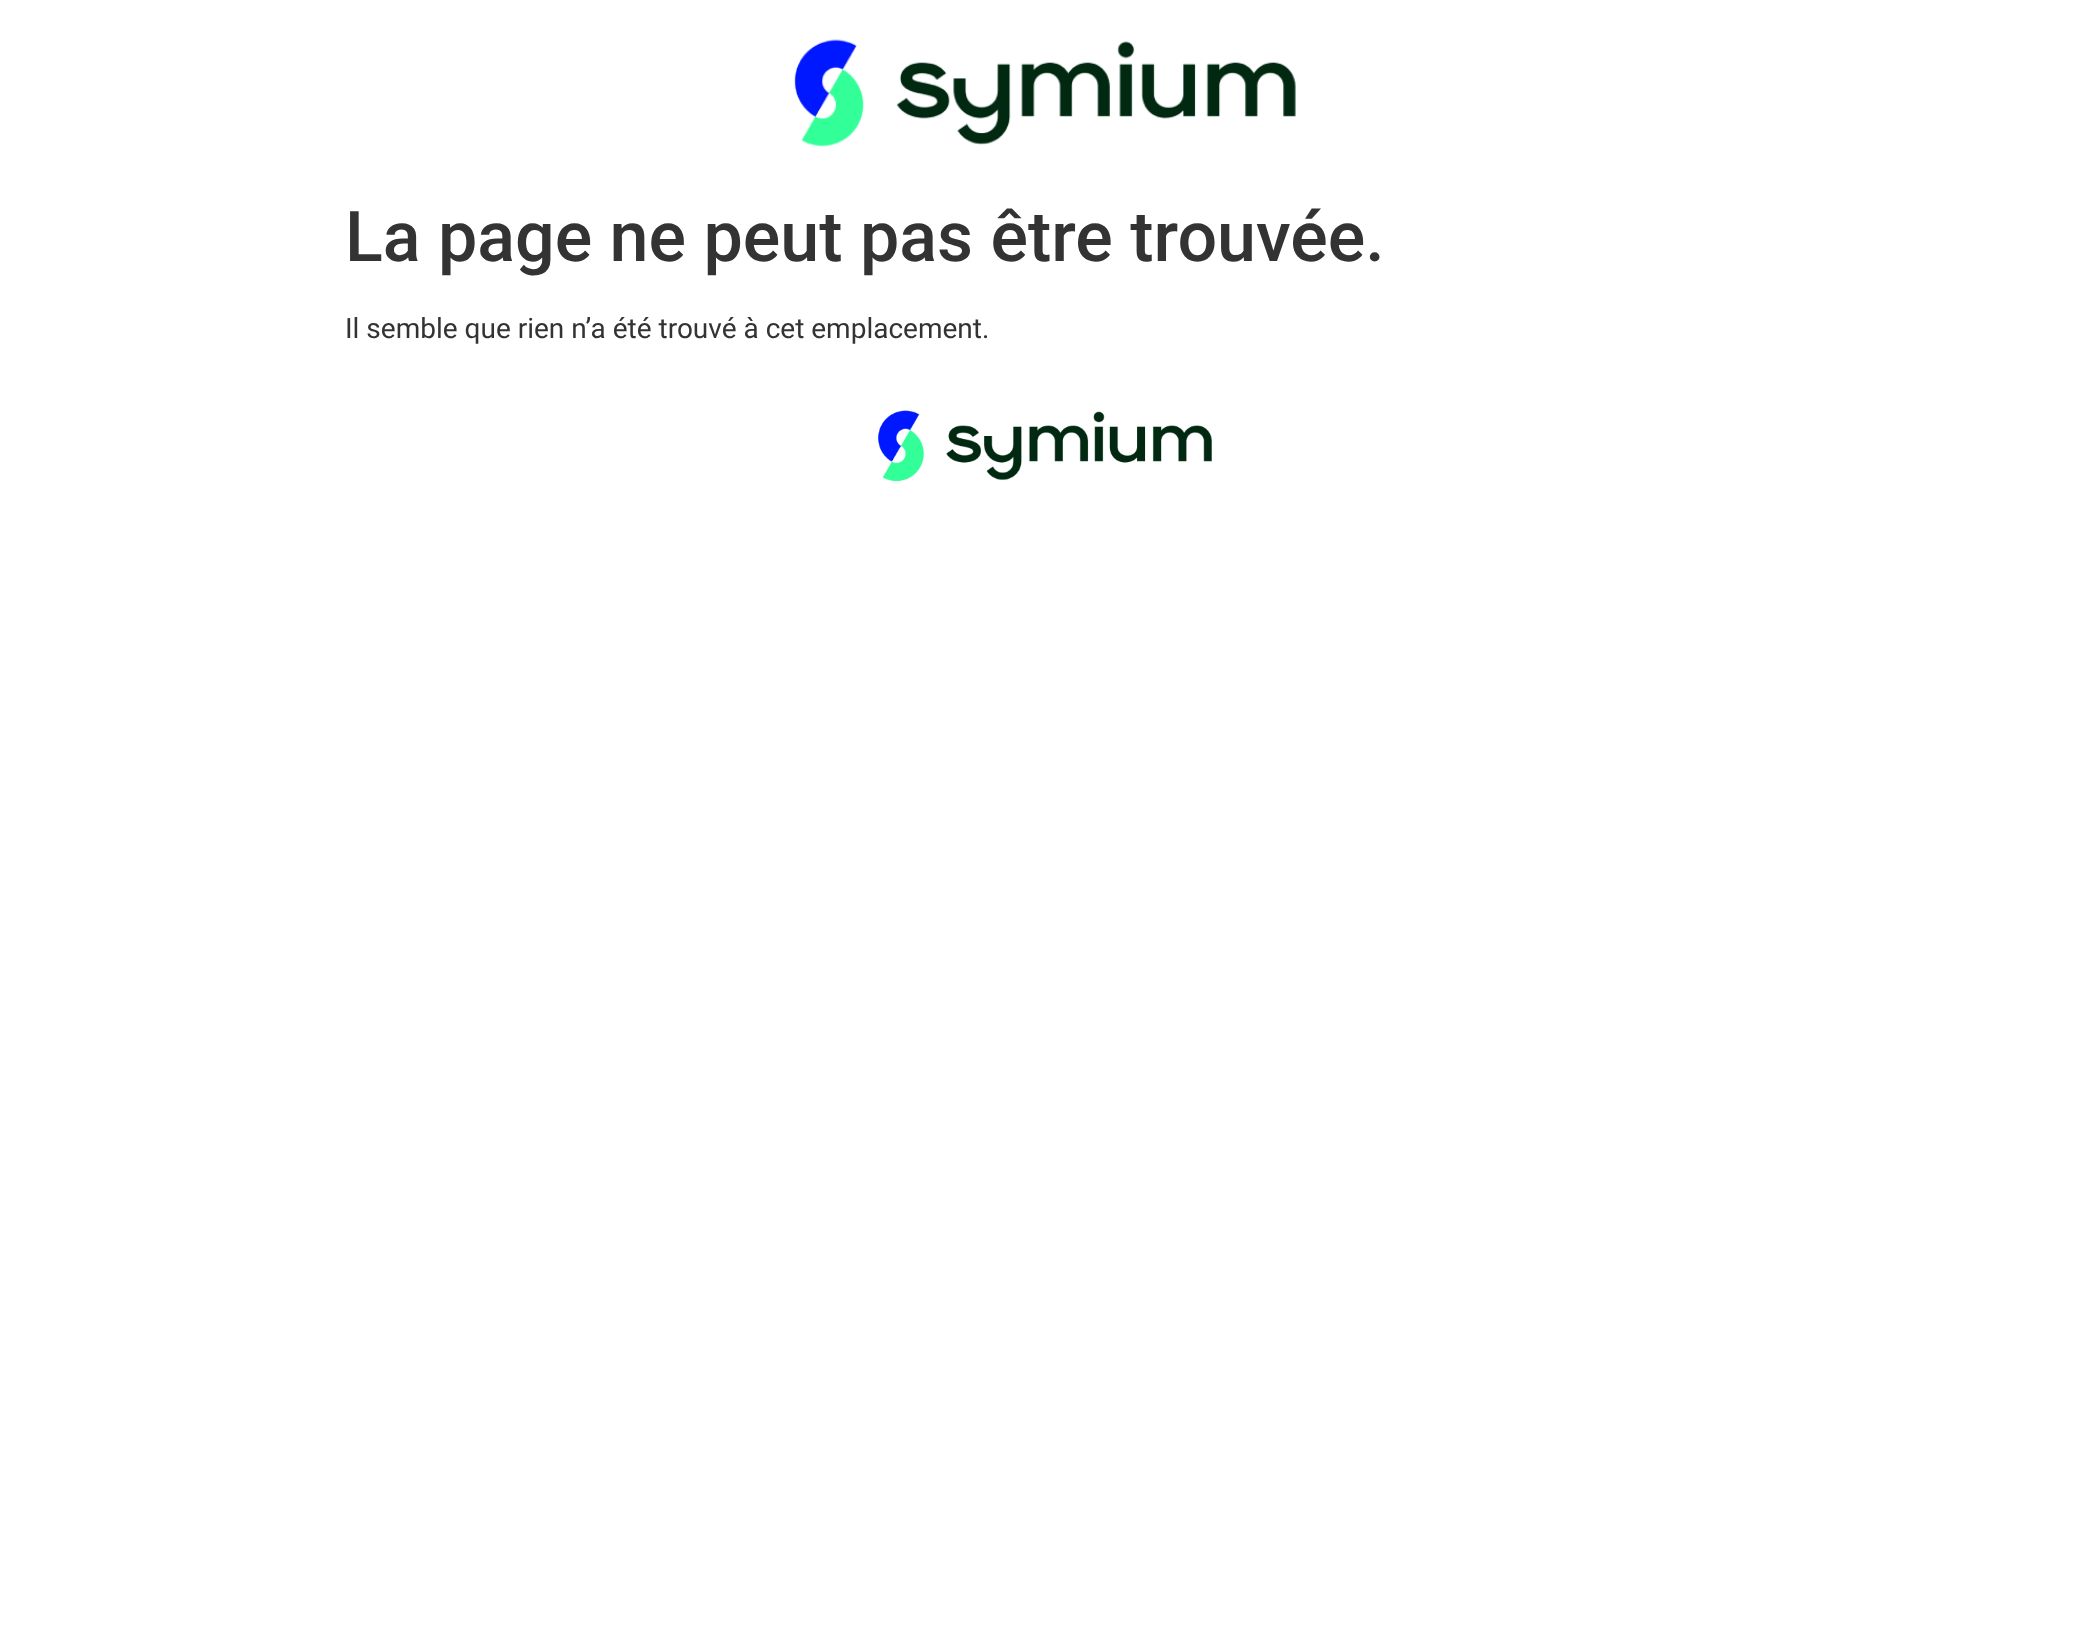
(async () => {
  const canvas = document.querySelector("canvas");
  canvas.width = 2089;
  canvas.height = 1639;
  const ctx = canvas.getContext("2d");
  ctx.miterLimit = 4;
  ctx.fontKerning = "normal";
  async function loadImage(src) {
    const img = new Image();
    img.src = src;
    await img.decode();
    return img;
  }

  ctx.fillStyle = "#ffffff";
  ctx.fillRect(0, 0, 2089, 1639);
  ctx.drawImage(await loadImage("img/1.png"), 794, 39, 502, 108);
  ctx.drawImage(await loadImage("img/2.png"), 877, 410, 335, 72);
  ctx.font = "500 70px Roboto";
  ctx.fillStyle = "#333333";
  ctx.fillText("La page ne peut pas être trouvée.", 345, 261);
  ctx.font = "28px Roboto";
  ctx.fillText("Il semble que rien n’a été trouvé à cet emplacement.", 345, 338);
})();
